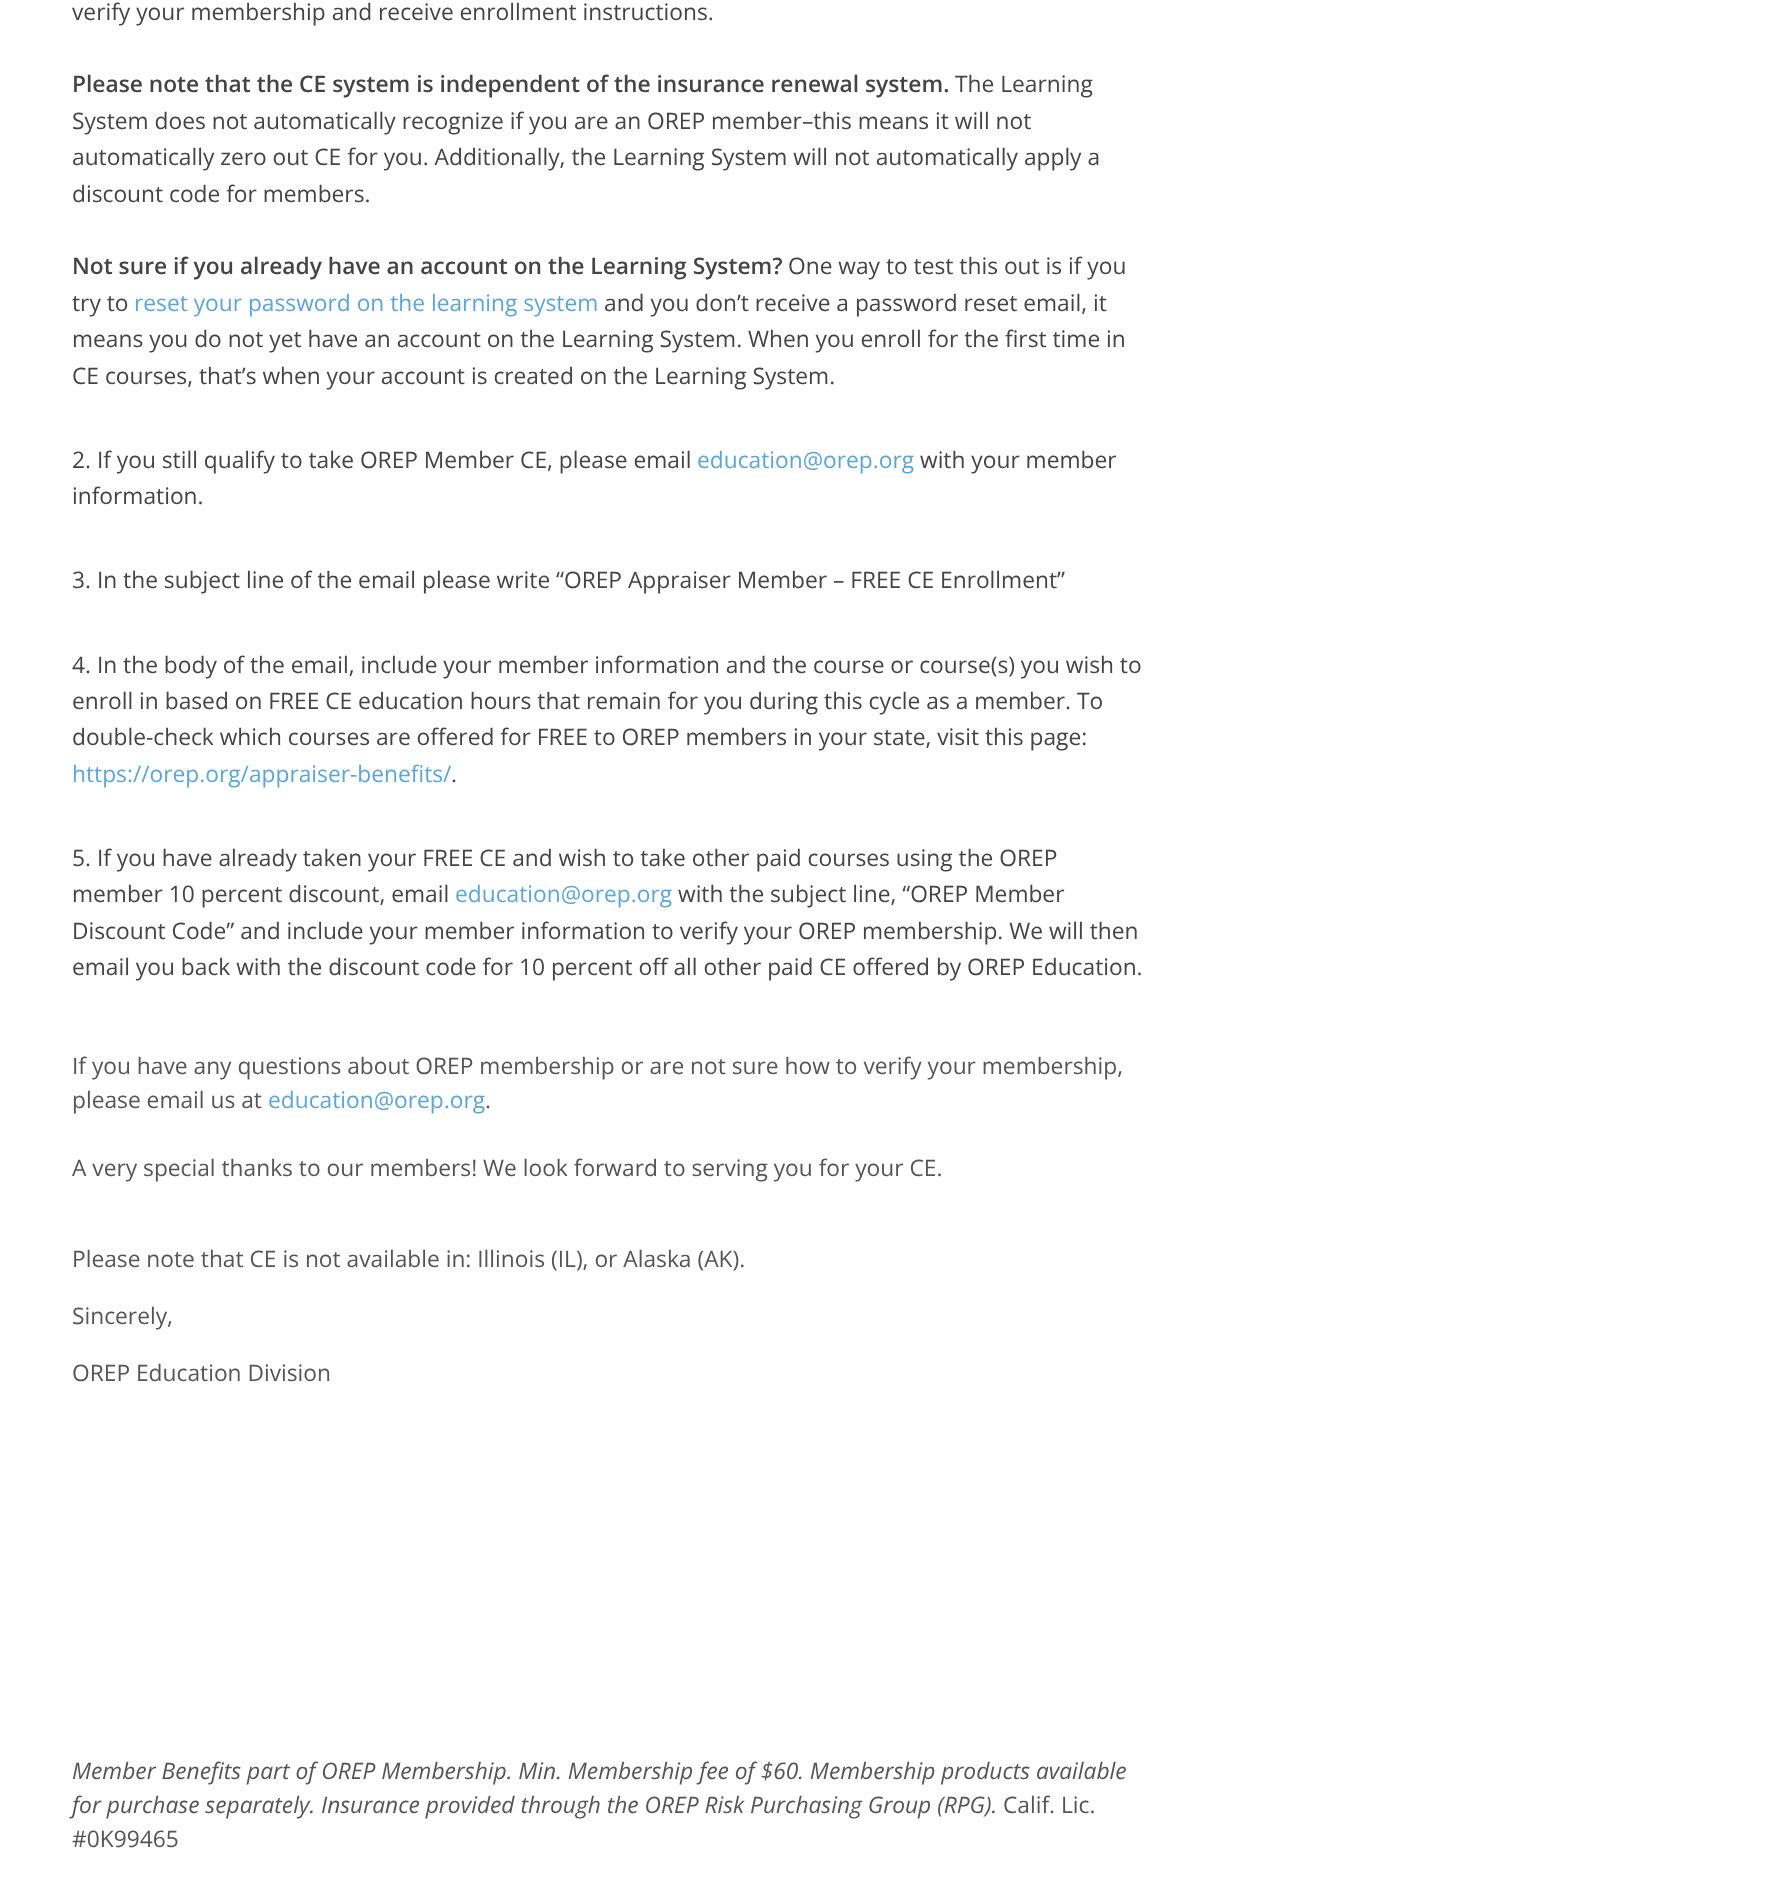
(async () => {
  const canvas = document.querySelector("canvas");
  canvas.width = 1788;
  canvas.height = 1895;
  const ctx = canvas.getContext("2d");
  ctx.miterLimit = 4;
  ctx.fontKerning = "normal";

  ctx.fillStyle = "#ffffff";
  ctx.fillRect(0, 0, 1788, 1895);
  ctx.font = "22.75px Open Sans";
  ctx.fillStyle = "#444444";
  ctx.fillText("verify your membership and receive enrollment instructions.", 72, 20);
  ctx.font = "600 22.75px Open Sans";
  ctx.fillText("Please note that the CE system is independent of the insurance renewal system.", 72, 92);
  ctx.font = "22.75px Open Sans";
  for (const [text, x, y] of [
    ["The Learning", 955, 92],
    ["System does not automatically recognize if you are an OREP member–this means it will not", 72, 129],
    ["automatically zero out CE for you. Additionally, the Learning System will not automatically apply a", 72, 165],
    ["discount code for members.", 72, 202],
  ]) {
    ctx.fillText(text, x, y);
  }
  ctx.font = "600 22.75px Open Sans";
  ctx.fillText("Not sure if you already have an account on the Learning System?", 72, 274);
  ctx.font = "22.75px Open Sans";
  ctx.fillText("One way to test this out is if you", 788, 274);
  ctx.fillText("try to", 72, 311);
  ctx.fillStyle = "#5ea5d7";
  ctx.fillText("reset your password on the learning system", 134, 311);
  ctx.fillStyle = "#444444";
  for (const [text, x, y] of [
    ["and you don’t receive a password reset email, it", 604, 311],
    ["means you do not yet have an account on the Learning System. When you enroll for the first time in", 72, 347],
    ["CE courses, that’s when your account is created on the Learning System.", 72, 384],
    ["2. If you still qualify to take OREP Member CE, please email", 72, 468],
  ]) {
    ctx.fillText(text, x, y);
  }
  ctx.fillStyle = "#5ea5d7";
  ctx.fillText("education@orep.org", 697, 468);
  ctx.fillStyle = "#444444";
  for (const [text, x, y] of [
    ["with your member", 920, 468],
    ["information.", 72, 504],
    ["3. In the subject line of the email please write “OREP Appraiser Member – FREE CE Enrollment”", 72, 588],
    ["4. In the body of the email, include your member information and the course or course(s) you wish to", 72, 673],
    ["enroll in based on FREE CE education hours that remain for you during this cycle as a member. To", 72, 709],
    ["double-check which courses are offered for FREE to OREP members in your state, visit this page:", 72, 745],
  ]) {
    ctx.fillText(text, x, y);
  }
  ctx.fillStyle = "#5ea5d7";
  ctx.fillText("https://orep.org/appraiser-benefits/", 72, 782);
  ctx.fillStyle = "#444444";
  for (const [text, x, y] of [
    [".", 451, 782],
    ["5. If you have already taken your FREE CE and wish to take other paid courses using the OREP", 72, 866],
    ["member 10 percent discount, email", 72, 902],
  ]) {
    ctx.fillText(text, x, y);
  }
  ctx.fillStyle = "#5ea5d7";
  ctx.fillText("education@orep.org", 455, 902);
  ctx.fillStyle = "#444444";
  for (const [text, x, y] of [
    ["with the subject line, “OREP Member", 678, 902],
    ["Discount Code” and include your member information to verify your OREP membership. We will then", 72, 939],
    ["email you back with the discount code for 10 percent off all other paid CE offered by OREP Education.", 72, 975],
  ]) {
    ctx.fillText(text, x, y);
  }
  ctx.fillStyle = "#555555";
  ctx.fillText("If you have any questions about OREP membership or are not sure how to verify your membership,", 72, 1074);
  ctx.fillText("please email us at", 72, 1108);
  ctx.fillStyle = "#5ea5d7";
  ctx.fillText("education@orep.org", 268, 1108);
  ctx.fillStyle = "#555555";
  for (const [text, x, y] of [
    [".", 485, 1108],
    ["A very special thanks to our members! We look forward to serving you for your CE.", 72, 1176],
    ["Please note that CE is not available in: Illinois (IL), or Alaska (AK).", 72, 1267],
    ["Sincerely,", 72, 1324],
    ["OREP Education Division", 72, 1381],
  ]) {
    ctx.fillText(text, x, y);
  }
  ctx.font = "italic 22.75px Open Sans";
  ctx.fillText("Member Benefits part of OREP Membership. Min. Membership fee of $60. Membership products available", 72, 1779);
  ctx.fillText("for purchase separately. Insurance provided through the OREP Risk Purchasing Group (RPG).", 72, 1813);
  ctx.font = "22.75px Open Sans";
  ctx.fillText("Calif. Lic.", 1003, 1813);
  ctx.fillText("#0K99465", 72, 1847);
})();
